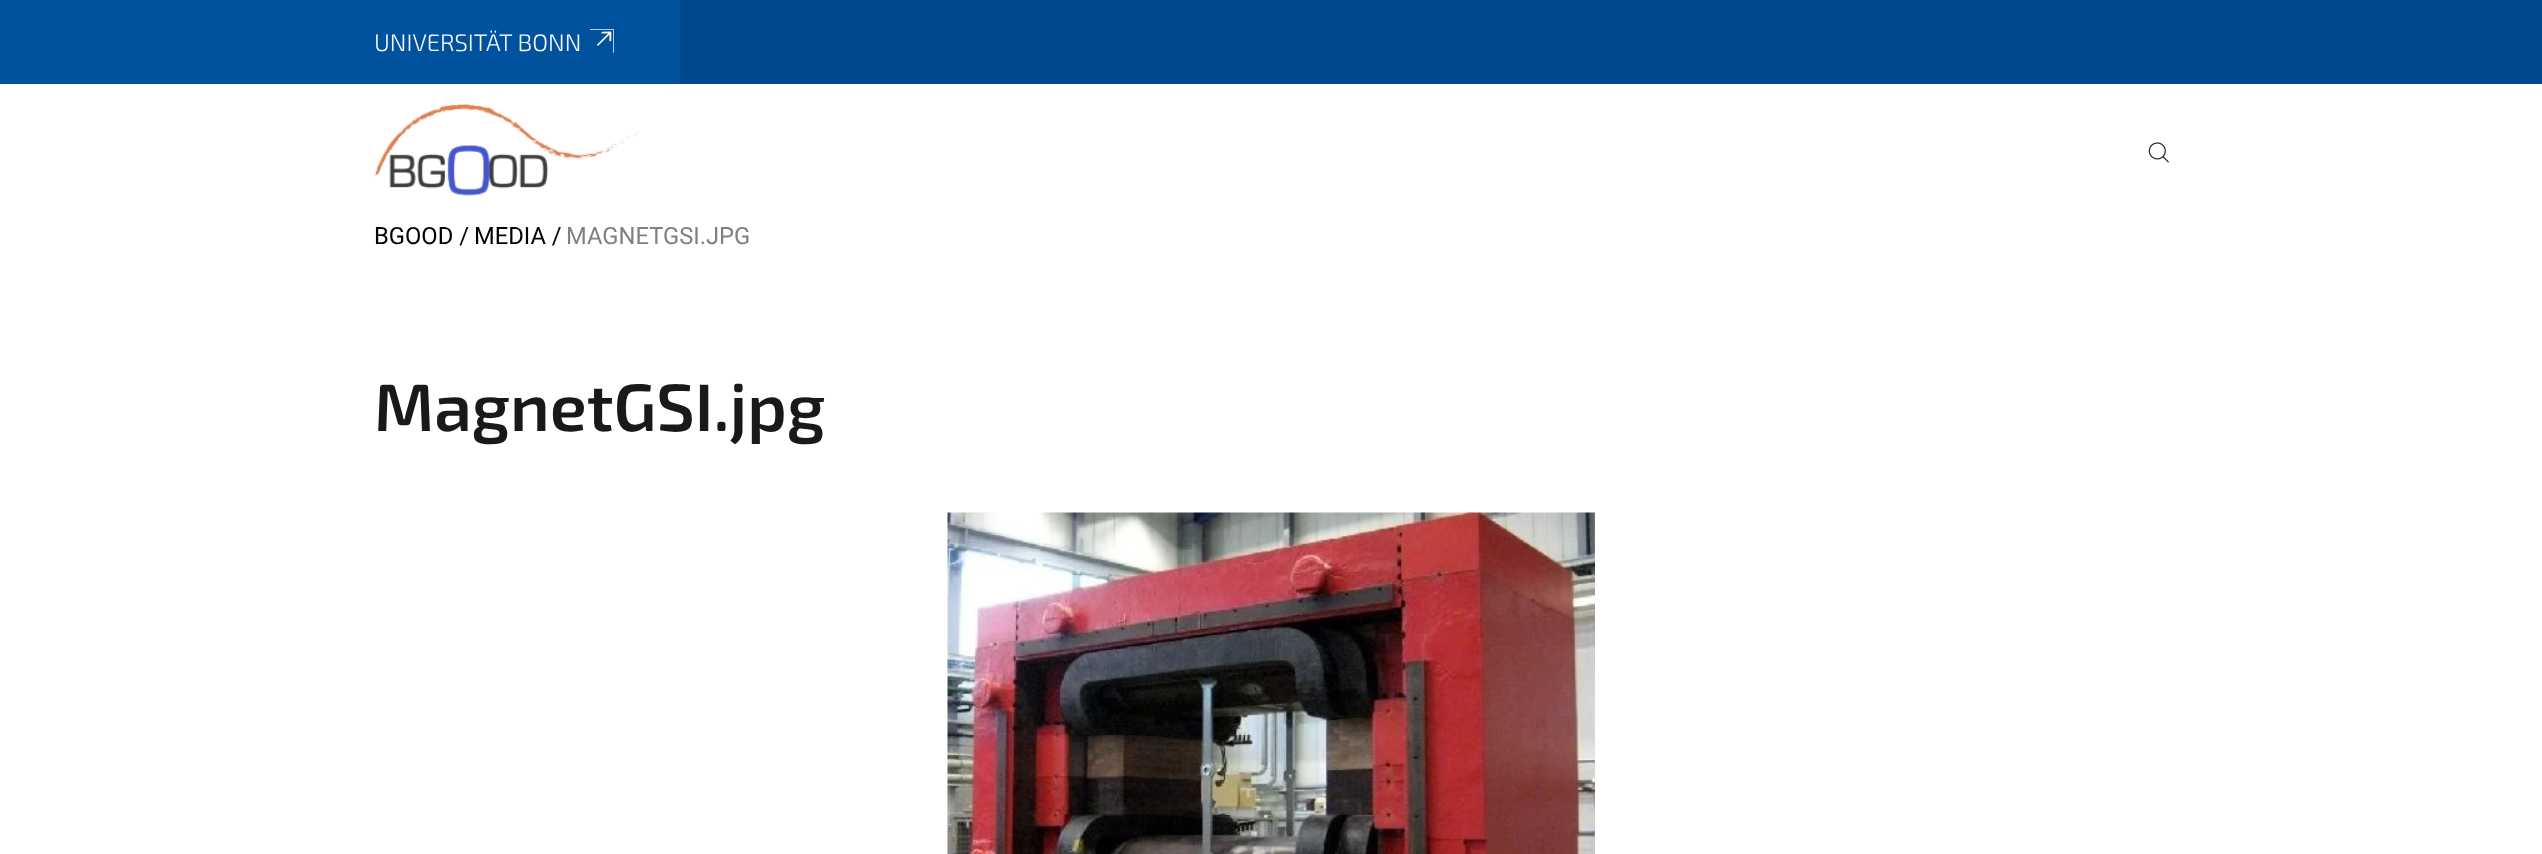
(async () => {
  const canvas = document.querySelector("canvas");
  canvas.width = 2542;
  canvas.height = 854;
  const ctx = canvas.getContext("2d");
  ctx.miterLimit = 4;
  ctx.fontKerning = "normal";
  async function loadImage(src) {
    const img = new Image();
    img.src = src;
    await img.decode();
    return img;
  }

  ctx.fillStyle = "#ffffff";
  ctx.fillRect(0, 0, 2542, 854);
  ctx.fillStyle = "#00498f";
  ctx.fillRect(680, 0, 1862, 84);
  ctx.fillStyle = "#00529f";
  ctx.fillRect(0, 0, 680, 84);
  ctx.drawImage(await loadImage("img/1.png"), 590, 29, 24, 24);
  ctx.drawImage(await loadImage("img/2.png"), 374, 103, 264, 93);
  ctx.drawImage(await loadImage("img/3.png"), 2148, 142, 21, 21);
  ctx.drawImage(await loadImage("img/4.png"), 947, 512, 648, 342);
  ctx.font = "300 23.75px 'Exo 2'";
  ctx.fillStyle = "#f6f7f9";
  ctx.fillText("UNIVERSITÄT BONN", 374, 51);
  ctx.font = "23.75px Roboto";
  ctx.fillStyle = "#000000";
  ctx.fillText("BGOOD /", 374, 244);
  ctx.fillText("MEDIA /", 474, 244);
  ctx.fillStyle = "#808080";
  ctx.fillText("MAGNETGSI.JPG", 566, 244);
  ctx.font = "600 67px 'Exo 2'";
  ctx.fillStyle = "#1a181b";
  ctx.fillText("MagnetGSI.jpg", 374, 431);
})();
